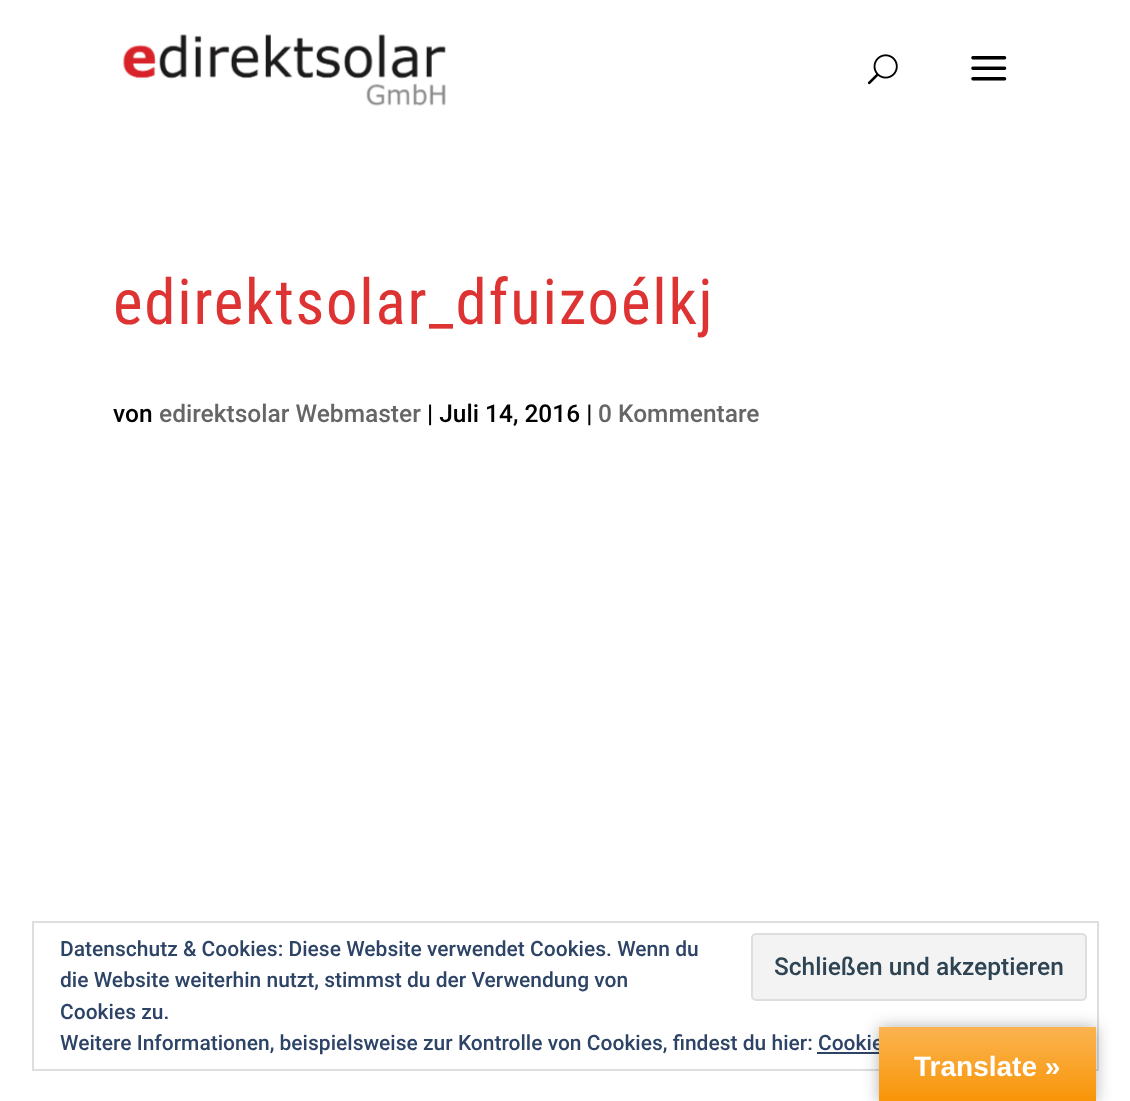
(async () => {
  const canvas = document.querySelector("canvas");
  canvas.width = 1130;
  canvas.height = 1101;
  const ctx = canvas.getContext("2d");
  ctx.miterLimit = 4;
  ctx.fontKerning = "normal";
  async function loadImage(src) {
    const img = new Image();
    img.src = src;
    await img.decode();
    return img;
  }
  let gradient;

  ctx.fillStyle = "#ffffff";
  ctx.fillRect(0, 0, 1130, 1101);
  ctx.drawImage(await loadImage("img/1.png"), 122, 34, 324, 72);
  ctx.drawImage(await loadImage("img/2.png"), 867, 54, 31, 31);
  ctx.drawImage(await loadImage("img/3.png"), 971, 56, 36, 25);
  ctx.strokeStyle = "#dedede";
  ctx.lineWidth = 2;
  ctx.strokeRect(33, 922, 1065, 148);
  ctx.fillStyle = "#f3f3f3";
  ctx.beginPath();
  ctx.roundRect(752, 934, 334, 66, 4);
  ctx.fill();
  ctx.stroke();
  ctx.fillStyle = "#2e4467";
  ctx.fillRect(817, 1052, 62, 2);
  ctx.fillStyle = "rgba(0, 0, 0, 0.3)";
  ctx.filter = "blur(8px)";
  ctx.beginPath();
  ctx.rect(879, 1027, 217, 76);
  ctx.fill();
  ctx.filter = "none";
  ctx.letterSpacing = "1.75px";
  ctx.font = "63px Roboto Condensed";
  ctx.fillStyle = "#dd3333";
  ctx.fillText("edirektsolar_dfuizoélkj", 113, 324);
  ctx.letterSpacing = "0px";
  ctx.font = "500 24.5px Roboto";
  ctx.fillStyle = "#000000";
  ctx.fillText("von", 113, 422);
  ctx.fillStyle = "#666666";
  ctx.fillText("edirektsolar Webmaster", 159, 422);
  ctx.fillStyle = "#000000";
  ctx.fillText("| Juli 14, 2016 |", 427, 422);
  ctx.fillStyle = "#666666";
  ctx.fillText("0 Kommentare", 598, 422);
  ctx.font = "500 21px Roboto";
  ctx.fillStyle = "#2e4467";
  ctx.fillText("Datenschutz & Cookies: Diese Website verwendet Cookies. Wenn du", 60, 956);
  ctx.fillText("die Website weiterhin nutzt, stimmst du der Verwendung von", 60, 987);
  ctx.font = "500 24.5px Roboto";
  ctx.fillStyle = "#2e4453";
  ctx.fillText("Schließen und akzeptieren", 774, 975);
  ctx.font = "500 21px Roboto";
  ctx.fillStyle = "#2e4467";
  ctx.fillText("Cookies zu.", 60, 1019);
  ctx.fillText("Weitere Informationen, beispielsweise zur Kontrolle von Cookies, findest du hier: Cookie", 60, 1050);
  gradient = ctx.createLinearGradient(987, 1027, 987, 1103);
  gradient.addColorStop(0, "#fbb450");
  gradient.addColorStop(1, "#f89406");
  ctx.fillStyle = gradient;
  ctx.fillRect(879, 1027, 217, 74);
  ctx.font = "bold 28px Liberation Sans";
  ctx.fillStyle = "#ffffff";
  ctx.fillText("Translate »", 914, 1076);
})();
